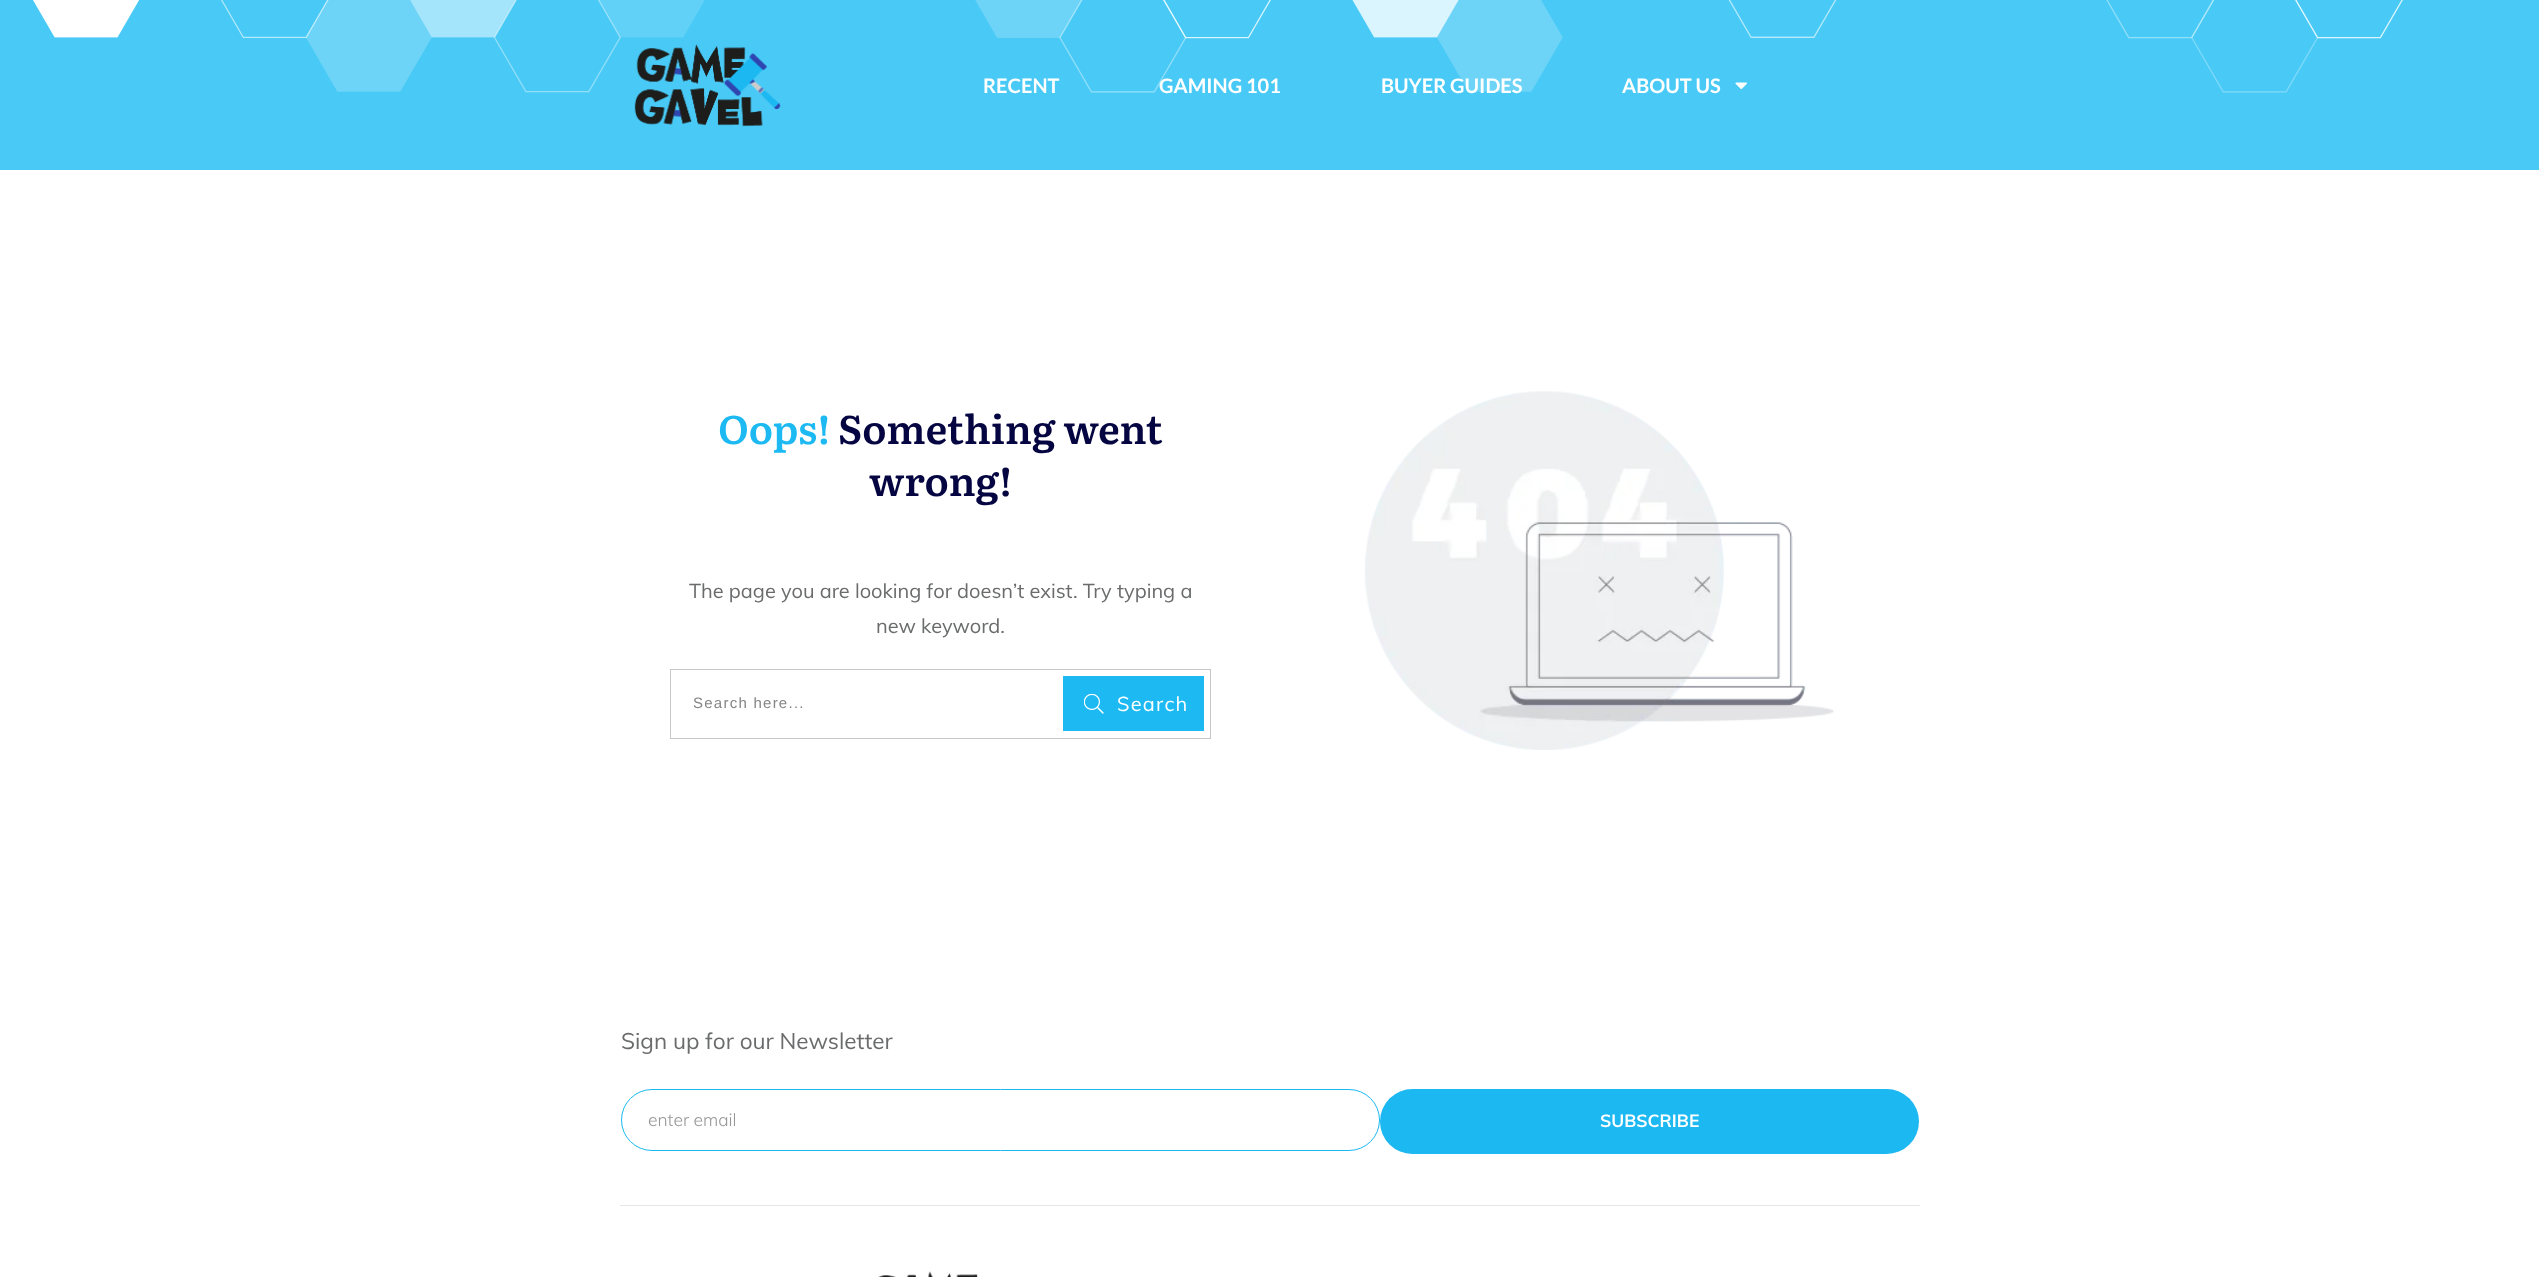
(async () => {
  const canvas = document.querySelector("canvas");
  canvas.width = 2539;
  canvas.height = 1277;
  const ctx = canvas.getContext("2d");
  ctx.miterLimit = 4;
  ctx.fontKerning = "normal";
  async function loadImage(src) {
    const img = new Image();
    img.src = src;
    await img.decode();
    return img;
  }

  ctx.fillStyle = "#ffffff";
  ctx.fillRect(0, 0, 2539, 1277);
  ctx.fillStyle = "#49caf6";
  ctx.fillRect(0, 0, 2539, 170);
  ctx.drawImage(await loadImage("img/1.png"), 33, 0, 2370, 93);
  ctx.drawImage(await loadImage("img/2.png"), 634, 44, 147, 83);
  ctx.drawImage(await loadImage("img/3.png"), 1735, 82, 12, 7);
  ctx.strokeStyle = "#c7c7c7";
  ctx.strokeRect(670.5, 669.5, 540, 69);
  ctx.fillStyle = "#1cb9f2";
  ctx.fillRect(1063, 676, 141, 55);
  ctx.drawImage(await loadImage("img/4.png"), 1084, 694, 20, 20);
  ctx.drawImage(await loadImage("img/5.png"), 1365, 391, 469, 359);
  ctx.fillStyle = "#e6e6e6";
  ctx.fillRect(620, 1205, 1300, 1);
  ctx.beginPath();
  ctx.roundRect(621.5, 1089.5, 758, 61, 30.5);
  ctx.strokeStyle = "#1bb8f2";
  ctx.stroke();
  ctx.fillStyle = "#1bb8f2";
  ctx.beginPath();
  ctx.roundRect(1380, 1089, 539, 65, 32.5);
  ctx.fill();
  ctx.drawImage(await loadImage("img/6.png"), 878, 1271, 100, 6);
  ctx.font = "bold 20px Lato";
  ctx.fillStyle = "#ffffff";
  for (const [text, x, y] of [
    ["RECENT", 983, 93],
    ["GAMING 101", 1159, 93],
    ["BUYER GUIDES", 1381, 93],
    ["ABOUT US", 1622, 93],
  ]) {
    ctx.fillText(text, x, y);
  }
  ctx.font = "600 40px Literata";
  ctx.fillStyle = "#1cb9f2";
  ctx.fillText("Oops!", 718, 444);
  ctx.fillStyle = "#050541";
  ctx.fillText("Something went", 838, 444);
  ctx.fillText("wrong!", 869, 496);
  ctx.font = "20px Muli";
  ctx.fillStyle = "#6a6b6c";
  ctx.fillText("The page you are looking for doesn’t exist. Try typing a", 689, 598);
  ctx.fillText("new keyword.", 876, 633);
  ctx.letterSpacing = "1.25px";
  ctx.font = "15px Liberation Sans";
  ctx.fillStyle = "#858585";
  ctx.fillText("Search here...", 693, 708);
  ctx.font = "20px Muli";
  ctx.fillStyle = "#ffffff";
  ctx.fillText("Search", 1117, 711);
  ctx.letterSpacing = "0px";
  ctx.font = "22.5px Muli";
  ctx.fillStyle = "#6a6b6c";
  ctx.fillText("Sign up for our Newsletter", 621, 1049);
  ctx.font = "300 17.5px Muli";
  ctx.fillStyle = "#969798";
  ctx.fillText("enter email", 648, 1126);
  ctx.font = "bold 17.5px Muli";
  ctx.fillStyle = "#ffffff";
  ctx.fillText("SUBSCRIBE", 1600, 1127);
})();
